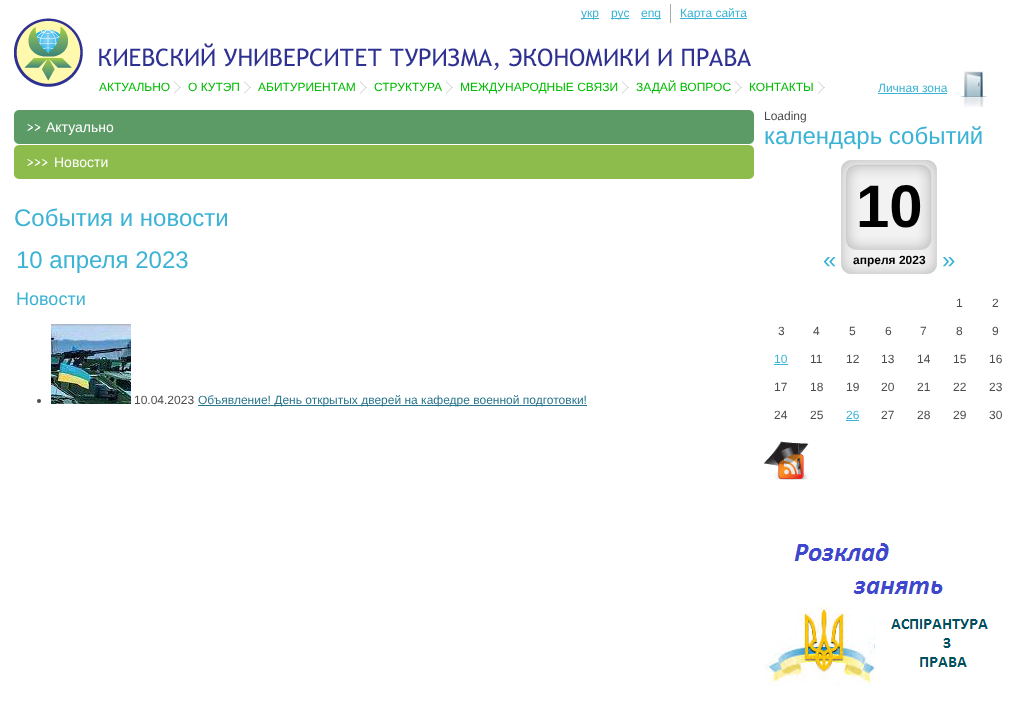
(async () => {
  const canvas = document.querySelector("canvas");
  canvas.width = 1028;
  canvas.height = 724;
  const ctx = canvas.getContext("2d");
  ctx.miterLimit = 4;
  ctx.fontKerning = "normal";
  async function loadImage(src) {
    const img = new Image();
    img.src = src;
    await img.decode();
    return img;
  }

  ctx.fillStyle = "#ffffff";
  ctx.fillRect(0, 0, 1028, 724);
  ctx.drawImage(await loadImage("img/3.png"), 14, 18, 737, 69);
  for (const [x, y, w, h, color] of [
    [670, 4, 1, 19, "#aaaaaa"],
    [680, 18, 67, 1, "#3bb3d5"],
    [581, 18, 18, 1, "#3bb3d5"],
    [611, 18, 18, 1, "#3bb3d5"],
    [641, 18, 20, 1, "#3bb3d5"],
  ]) {
    ctx.fillStyle = color;
    ctx.fillRect(x, y, w, h);
  }
  ctx.drawImage(await loadImage("img/1.png"), 174, 81, 7, 13);
  ctx.drawImage(await loadImage("img/1.png"), 244, 81, 7, 13);
  ctx.drawImage(await loadImage("img/1.png"), 360, 81, 7, 13);
  ctx.drawImage(await loadImage("img/1.png"), 446, 81, 7, 13);
  ctx.drawImage(await loadImage("img/1.png"), 622, 81, 7, 13);
  ctx.drawImage(await loadImage("img/1.png"), 735, 81, 7, 13);
  ctx.drawImage(await loadImage("img/1.png"), 818, 81, 7, 13);
  ctx.drawImage(await loadImage("img/2.png"), 958, 70, 31, 37);
  ctx.fillRect(878, 93, 69, 1);
  ctx.fillStyle = "#5c9a66";
  ctx.fillRect(41, 110, 708, 34);
  ctx.drawImage(await loadImage("img/4.png"), 14, 110, 27, 34);
  ctx.drawImage(await loadImage("img/5.png"), 749, 110, 5, 34);
  ctx.fillStyle = "#8dbc4d";
  ctx.fillRect(48, 145, 701, 34);
  ctx.drawImage(await loadImage("img/6.png"), 14, 145, 34, 34);
  ctx.drawImage(await loadImage("img/7.png"), 749, 145, 5, 34);
  ctx.fillStyle = "#4c4c4c";
  ctx.beginPath();
  ctx.arc(39, 401, 2, 0, Math.PI * 2);
  ctx.fill();
  ctx.drawImage(await loadImage("img/8.png"), 51, 324, 80, 80);
  ctx.fillStyle = "#29768c";
  ctx.fillRect(198, 405, 389, 1);
  ctx.drawImage(await loadImage("img/9.png"), 841, 160, 96, 114);
  ctx.fillStyle = "#3bb3d5";
  ctx.fillRect(774, 364, 14, 1);
  ctx.fillRect(846, 420, 13, 1);
  ctx.drawImage(await loadImage("img/10.png"), 764, 441, 45, 39);
  ctx.drawImage(await loadImage("img/11.png"), 794, 543, 149, 51);
  ctx.drawImage(await loadImage("img/12.png"), 764, 606, 224, 80);
  ctx.font = "12px Liberation Sans";
  for (const [text, x, y] of [
    ["Карта сайта", 680, 17],
    ["укр", 581, 17],
    ["рус", 611, 17],
    ["eng", 641, 17],
  ]) {
    ctx.fillText(text, x, y);
  }
  ctx.fillStyle = "#01bb02";
  for (const [text, x, y] of [
    ["АКТУАЛЬНО", 99, 91],
    ["О КУТЭП", 188, 91],
    ["АБИТУРИЕНТАМ", 258, 91],
    ["СТРУКТУРА", 374, 91],
    ["МЕЖДУНАРОДНЫЕ СВЯЗИ", 460, 91],
    ["ЗАДАЙ ВОПРОС", 636, 91],
    ["КОНТАКТЫ", 749, 91],
  ]) {
    ctx.fillText(text, x, y);
  }
  ctx.fillStyle = "#3bb3d5";
  ctx.fillText("Личная зона", 878, 92);
  ctx.font = "14px Liberation Sans";
  ctx.fillStyle = "#ffffff";
  ctx.fillText("Актуально", 46, 132);
  ctx.fillText("Новости", 54, 167);
  ctx.font = "24px Liberation Sans";
  ctx.fillStyle = "#3bb3d5";
  ctx.fillText("События и новости", 14, 226);
  ctx.fillText("10 апреля 2023", 16, 268);
  ctx.font = "18px Liberation Sans";
  ctx.fillText("Новости", 16, 305);
  ctx.font = "12px Liberation Sans";
  ctx.fillStyle = "#4c4c4c";
  ctx.fillText("10.04.2023", 134, 404);
  ctx.fillStyle = "#29768c";
  ctx.fillText("Объявление! День открытых дверей на кафедре военной подготовки!", 198, 404);
  ctx.fillStyle = "#4c4c4c";
  ctx.fillText("Loading", 764, 120);
  ctx.font = "24px Liberation Sans";
  ctx.fillStyle = "#3bb3d5";
  ctx.fillText("календарь событий", 764, 144);
  ctx.fillText("«", 823, 268);
  ctx.font = "bold 60px Liberation Sans";
  ctx.fillStyle = "#000000";
  ctx.fillText("10", 856, 227);
  ctx.font = "bold 12px Liberation Sans";
  ctx.fillText("апреля 2023", 853, 264);
  ctx.font = "24px Liberation Sans";
  ctx.fillStyle = "#3bb3d5";
  ctx.fillText("»", 942, 268);
  ctx.font = "12px Liberation Sans";
  ctx.fillStyle = "#4c4c4c";
  for (const [text, x, y] of [
    ["1", 956, 307],
    ["2", 992, 307],
    ["3", 778, 335],
    ["4", 813, 335],
    ["5", 849, 335],
    ["6", 885, 335],
    ["7", 920, 335],
    ["8", 956, 335],
    ["9", 992, 335],
  ]) {
    ctx.fillText(text, x, y);
  }
  ctx.fillStyle = "#3bb3d5";
  ctx.fillText("10", 774, 363);
  ctx.fillStyle = "#4c4c4c";
  for (const [text, x, y] of [
    ["11", 810, 363],
    ["12", 846, 363],
    ["13", 881, 363],
    ["14", 917, 363],
    ["15", 953, 363],
    ["16", 989, 363],
    ["17", 774, 391],
    ["18", 810, 391],
    ["19", 846, 391],
    ["20", 881, 391],
    ["21", 917, 391],
    ["22", 953, 391],
    ["23", 989, 391],
    ["24", 774, 419],
    ["25", 810, 419],
  ]) {
    ctx.fillText(text, x, y);
  }
  ctx.fillStyle = "#3bb3d5";
  ctx.fillText("26", 846, 419);
  ctx.fillStyle = "#4c4c4c";
  for (const [text, x, y] of [
    ["27", 881, 419],
    ["28", 917, 419],
    ["29", 953, 419],
    ["30", 989, 419],
  ]) {
    ctx.fillText(text, x, y);
  }
})();
